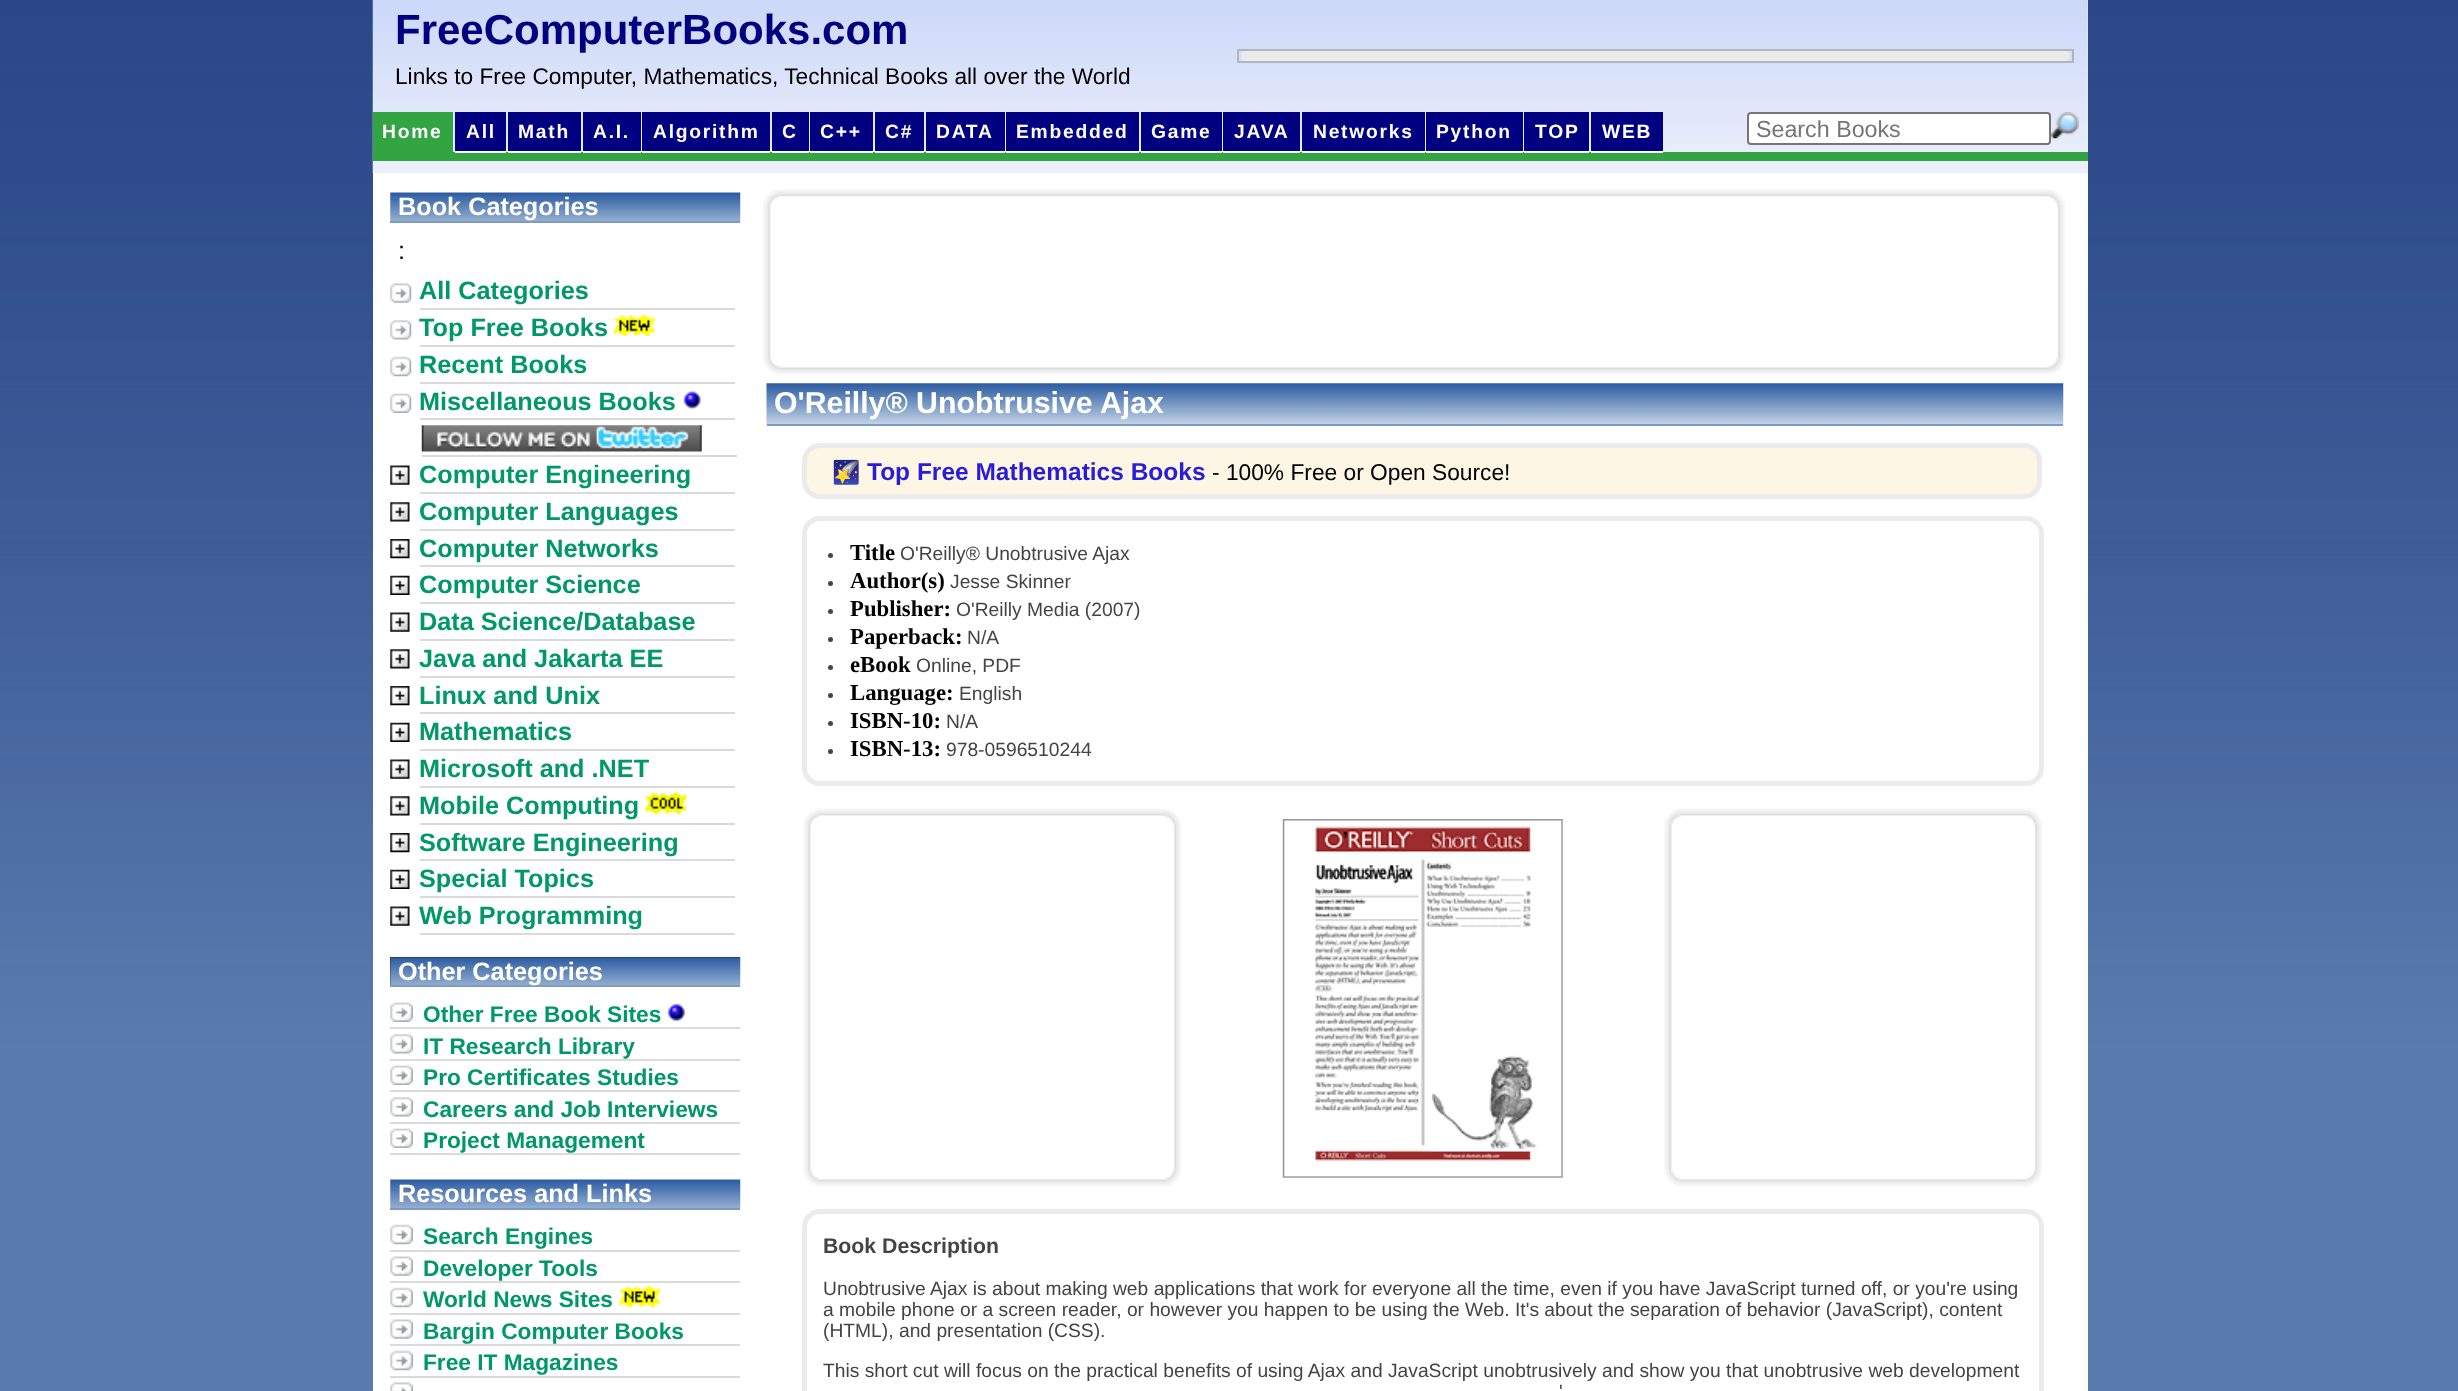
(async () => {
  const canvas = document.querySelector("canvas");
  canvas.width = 2458;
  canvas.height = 1391;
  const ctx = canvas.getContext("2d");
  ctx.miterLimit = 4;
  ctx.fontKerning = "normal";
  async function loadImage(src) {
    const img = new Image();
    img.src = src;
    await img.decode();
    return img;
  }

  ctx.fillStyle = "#ffffff";
  ctx.fillRect(0, 0, 2458, 1391);
  ctx.drawImage(await loadImage("img/1.png"), 0, 0, 2458, 1391);
  ctx.fillRect(373, 0, 1715, 1391);
  ctx.drawImage(await loadImage("img/2.png"), 372, 0, 1716, 174);
  ctx.strokeStyle = "#b1b6ba";
  ctx.lineWidth = 2;
  ctx.strokeRect(1238, 50, 835, 12);
  ctx.fillStyle = "#ebebeb";
  ctx.beginPath();
  ctx.roundRect(1241, 51, 829, 10, 5);
  ctx.fill();
  for (const [x, y, w, h, color] of [
    [373, 112, 80, 40, "#33a442"],
    [455, 112, 51, 39, "#000080"],
    [373, 152, 1715, 9, "#33a442"],
    [455, 151, 51, 2, "#ffffff"],
    [508, 112, 73, 39, "#000080"],
    [508, 151, 73, 2, "#ffffff"],
    [583, 112, 58, 39, "#000080"],
    [583, 151, 58, 2, "#ffffff"],
    [642, 112, 128, 39, "#000080"],
    [642, 151, 128, 2, "#ffffff"],
    [772, 112, 37, 39, "#000080"],
    [772, 151, 37, 2, "#ffffff"],
    [810, 112, 63, 39, "#000080"],
    [810, 151, 63, 2, "#ffffff"],
    [875, 112, 49, 39, "#000080"],
    [875, 151, 49, 2, "#ffffff"],
    [926, 112, 79, 39, "#000080"],
    [926, 151, 79, 2, "#ffffff"],
    [1006, 112, 133, 39, "#000080"],
    [1006, 151, 133, 2, "#ffffff"],
    [1141, 112, 81, 39, "#000080"],
    [1141, 151, 81, 2, "#ffffff"],
    [1223, 112, 77, 39, "#000080"],
    [1223, 151, 77, 2, "#ffffff"],
    [1302, 112, 123, 39, "#000080"],
    [1302, 151, 123, 2, "#ffffff"],
    [1426, 112, 97, 39, "#000080"],
    [1426, 151, 97, 2, "#ffffff"],
    [1524, 112, 65, 39, "#000080"],
    [1524, 151, 65, 2, "#ffffff"],
    [1591, 112, 72, 39, "#000080"],
    [1591, 151, 72, 2, "#ffffff"],
  ]) {
    ctx.fillStyle = color;
    ctx.fillRect(x, y, w, h);
  }
  ctx.beginPath();
  ctx.roundRect(1748, 113, 302, 31, 3);
  ctx.fill();
  ctx.strokeStyle = "#767676";
  ctx.stroke();
  ctx.drawImage(await loadImage("img/3.png"), 2051, 112, 28, 27);
  ctx.drawImage(await loadImage("img/4.png"), 390, 192, 351, 31);
  ctx.fillStyle = "#7b9bc4";
  ctx.fillRect(390, 221, 350, 2);
  ctx.drawImage(await loadImage("img/5.png"), 390, 283, 22, 20);
  ctx.fillStyle = "#dadada";
  ctx.fillRect(420, 308, 315, 2);
  ctx.drawImage(await loadImage("img/6.png"), 390, 320, 22, 20);
  ctx.fillRect(420, 345, 315, 2);
  ctx.drawImage(await loadImage("img/7.png"), 613, 315, 42, 21);
  ctx.drawImage(await loadImage("img/8.png"), 390, 356, 22, 21);
  ctx.fillRect(420, 382, 315, 2);
  ctx.drawImage(await loadImage("img/9.png"), 390, 393, 22, 20);
  ctx.fillRect(420, 418, 315, 2);
  ctx.drawImage(await loadImage("img/10.png"), 682, 390, 20, 20);
  ctx.fillRect(422, 455, 315, 2);
  ctx.drawImage(await loadImage("img/11.png"), 421, 425, 281, 27);
  ctx.drawImage(await loadImage("img/12.png"), 390, 465, 20, 20);
  ctx.fillRect(420, 492, 315, 2);
  ctx.drawImage(await loadImage("img/13.png"), 390, 502, 20, 20);
  ctx.fillRect(420, 529, 315, 2);
  ctx.drawImage(await loadImage("img/14.png"), 390, 539, 20, 20);
  ctx.fillRect(420, 565, 315, 2);
  ctx.drawImage(await loadImage("img/15.png"), 390, 575, 20, 20);
  ctx.fillRect(420, 602, 315, 2);
  ctx.drawImage(await loadImage("img/12.png"), 390, 612, 20, 20);
  ctx.fillRect(420, 639, 315, 2);
  ctx.drawImage(await loadImage("img/13.png"), 390, 649, 20, 20);
  ctx.fillRect(420, 676, 315, 2);
  ctx.drawImage(await loadImage("img/14.png"), 390, 686, 20, 20);
  ctx.fillRect(420, 712, 315, 2);
  ctx.drawImage(await loadImage("img/15.png"), 390, 722, 20, 20);
  ctx.fillRect(420, 749, 315, 2);
  ctx.drawImage(await loadImage("img/12.png"), 390, 759, 20, 20);
  ctx.fillRect(420, 786, 315, 2);
  ctx.drawImage(await loadImage("img/13.png"), 390, 796, 20, 20);
  ctx.fillRect(420, 823, 315, 2);
  ctx.drawImage(await loadImage("img/16.png"), 645, 792, 42, 22);
  ctx.drawImage(await loadImage("img/14.png"), 390, 833, 20, 20);
  ctx.fillRect(420, 859, 315, 2);
  ctx.drawImage(await loadImage("img/15.png"), 390, 869, 20, 20);
  ctx.fillRect(420, 896, 315, 2);
  ctx.drawImage(await loadImage("img/12.png"), 390, 906, 20, 20);
  ctx.fillRect(420, 933, 315, 2);
  ctx.fillStyle = "#000000";
  ctx.fillRect(390, 957, 350, 28);
  ctx.drawImage(await loadImage("img/17.png"), 390, 957, 351, 30);
  ctx.fillStyle = "#7b9bc4";
  ctx.fillRect(390, 985, 350, 2);
  ctx.drawImage(await loadImage("img/18.png"), 390, 1002, 23, 20);
  ctx.fillStyle = "#dadada";
  ctx.fillRect(390, 1027, 350, 2);
  ctx.drawImage(await loadImage("img/19.png"), 666, 1002, 20, 20);
  ctx.drawImage(await loadImage("img/20.png"), 390, 1034, 23, 20);
  ctx.fillRect(390, 1059, 350, 2);
  ctx.drawImage(await loadImage("img/18.png"), 390, 1065, 23, 20);
  ctx.fillRect(390, 1090, 350, 2);
  ctx.drawImage(await loadImage("img/20.png"), 390, 1097, 23, 20);
  ctx.fillRect(390, 1122, 350, 2);
  ctx.drawImage(await loadImage("img/18.png"), 390, 1128, 23, 20);
  ctx.fillRect(390, 1153, 350, 2);
  ctx.drawImage(await loadImage("img/21.png"), 390, 1179, 351, 31);
  ctx.fillStyle = "#7b9bc4";
  ctx.fillRect(390, 1208, 350, 2);
  ctx.drawImage(await loadImage("img/22.png"), 390, 1224, 23, 21);
  ctx.fillStyle = "#dadada";
  ctx.fillRect(390, 1250, 350, 2);
  ctx.drawImage(await loadImage("img/23.png"), 390, 1256, 23, 20);
  ctx.fillRect(390, 1281, 350, 2);
  ctx.drawImage(await loadImage("img/22.png"), 390, 1287, 23, 21);
  ctx.fillRect(390, 1313, 350, 2);
  ctx.drawImage(await loadImage("img/24.png"), 619, 1286, 42, 22);
  ctx.drawImage(await loadImage("img/23.png"), 390, 1319, 23, 20);
  ctx.fillRect(390, 1344, 350, 2);
  ctx.drawImage(await loadImage("img/22.png"), 390, 1350, 23, 21);
  ctx.fillRect(390, 1376, 350, 2);
  ctx.drawImage(await loadImage("img/25.png"), 390, 1382, 23, 9);
  ctx.drawImage(await loadImage("img/26.png"), 763, 189, 1302, 186);
  ctx.drawImage(await loadImage("img/27.png"), 766, 383, 1298, 43);
  ctx.fillStyle = "#7b9bc4";
  ctx.fillRect(767, 424, 1296, 2);
  ctx.fillStyle = "#fef6e4";
  ctx.beginPath();
  ctx.roundRect(804.5, 445.5, 1235, 51, 15.5);
  ctx.fill();
  ctx.strokeStyle = "#ebebeb";
  ctx.lineWidth = 5;
  ctx.stroke();
  ctx.beginPath();
  ctx.roundRect(804.5, 518.5, 1237, 265, 15.5);
  ctx.stroke();
  ctx.fillStyle = "#444444";
  ctx.beginPath();
  ctx.arc(830.5, 555.5, 2.5, 0, Math.PI * 2);
  ctx.fill();
  ctx.beginPath();
  ctx.arc(830.5, 583.5, 2.5, 0, Math.PI * 2);
  ctx.fill();
  ctx.beginPath();
  ctx.arc(830.5, 611.5, 2.5, 0, Math.PI * 2);
  ctx.fill();
  ctx.beginPath();
  ctx.arc(830.5, 639.5, 2.5, 0, Math.PI * 2);
  ctx.fill();
  ctx.beginPath();
  ctx.arc(830.5, 667.5, 2.5, 0, Math.PI * 2);
  ctx.fill();
  ctx.beginPath();
  ctx.arc(830.5, 695.5, 2.5, 0, Math.PI * 2);
  ctx.fill();
  ctx.beginPath();
  ctx.arc(830.5, 723.5, 2.5, 0, Math.PI * 2);
  ctx.fill();
  ctx.beginPath();
  ctx.arc(830.5, 751.5, 2.5, 0, Math.PI * 2);
  ctx.fill();
  ctx.drawImage(await loadImage("img/28.png"), 803, 808, 378, 379);
  ctx.drawImage(await loadImage("img/29.png"), 1282, 819, 281, 359);
  ctx.drawImage(await loadImage("img/30.png"), 1664, 808, 378, 379);
  ctx.beginPath();
  ctx.roundRect(804.5, 1211.5, 1237, 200, 15.5);
  ctx.stroke();
  ctx.font = "bold 42px Liberation Sans";
  ctx.fillStyle = "#000080";
  ctx.fillText("FreeComputerBooks.com", 395, 44);
  ctx.font = "22.7px Liberation Sans";
  ctx.fillStyle = "#000000";
  ctx.fillText("Links to Free Computer, Mathematics, Technical Books all over the World", 395, 84);
  ctx.letterSpacing = "1.75px";
  ctx.font = "bold 19.25px Liberation Sans";
  ctx.fillStyle = "#ffffff";
  for (const [text, x, y] of [
    ["Home", 382, 138],
    ["All", 466, 138],
    ["Math", 518, 138],
    ["A.I.", 593, 138],
    ["Algorithm", 653, 138],
    ["C", 782, 138],
    ["C++", 820, 138],
    ["C#", 885, 138],
    ["DATA", 936, 138],
    ["Embedded", 1016, 138],
    ["Game", 1151, 138],
    ["JAVA", 1234, 138],
    ["Networks", 1313, 138],
    ["Python", 1436, 138],
    ["TOP", 1535, 138],
    ["WEB", 1602, 138],
  ]) {
    ctx.fillText(text, x, y);
  }
  ctx.letterSpacing = "0px";
  ctx.font = "23.25px Liberation Sans";
  ctx.fillStyle = "#757575";
  ctx.fillText("Search Books", 1756, 137);
  ctx.font = "bold 25.25px Liberation Sans";
  ctx.fillStyle = "#ffffff";
  ctx.fillText("Book Categories", 398, 215);
  ctx.font = "25.25px Liberation Sans";
  ctx.fillStyle = "#000000";
  ctx.fillText(":", 398, 259);
  ctx.font = "bold 25.25px Liberation Sans";
  ctx.fillStyle = "#009966";
  for (const [text, x, y] of [
    ["All Categories", 419, 299],
    ["Top Free Books", 419, 336],
    ["Recent Books", 419, 373],
    ["Miscellaneous Books", 419, 410],
    ["Computer Engineering", 419, 483],
    ["Computer Languages", 419, 520],
    ["Computer Networks", 419, 557],
    ["Computer Science", 419, 593],
    ["Data Science/Database", 419, 630],
    ["Java and Jakarta EE", 419, 667],
    ["Linux and Unix", 419, 704],
    ["Mathematics", 419, 740],
    ["Microsoft and .NET", 419, 777],
    ["Mobile Computing", 419, 814],
    ["Software Engineering", 419, 851],
    ["Special Topics", 419, 887],
    ["Web Programming", 419, 924],
  ]) {
    ctx.fillText(text, x, y);
  }
  ctx.fillStyle = "#ffffff";
  ctx.fillText("Other Categories", 398, 980);
  ctx.font = "bold 22.7px Liberation Sans";
  ctx.fillStyle = "#009966";
  for (const [text, x, y] of [
    ["Other Free Book Sites", 423, 1022],
    ["IT Research Library", 423, 1054],
    ["Pro Certificates Studies", 423, 1085],
    ["Careers and Job Interviews", 423, 1117],
    ["Project Management", 423, 1148],
  ]) {
    ctx.fillText(text, x, y);
  }
  ctx.font = "bold 25.25px Liberation Sans";
  ctx.fillStyle = "#ffffff";
  ctx.fillText("Resources and Links", 398, 1202);
  ctx.font = "bold 22.7px Liberation Sans";
  ctx.fillStyle = "#009966";
  for (const [text, x, y] of [
    ["Search Engines", 423, 1244],
    ["Developer Tools", 423, 1276],
    ["World News Sites", 423, 1307],
    ["Bargin Computer Books", 423, 1339],
    ["Free IT Magazines", 423, 1370],
  ]) {
    ctx.fillText(text, x, y);
  }
  ctx.font = "bold 30.25px Liberation Sans";
  ctx.fillStyle = "#ffffff";
  ctx.fillText("O'Reilly® Unobtrusive Ajax", 774, 413);
  ctx.font = "22.75px Noto Color Emoji";
  ctx.fillStyle = "#000000";
  ctx.fillText("🌠", 832, 480);
  ctx.font = "bold 24.5px Liberation Sans";
  ctx.fillStyle = "#291dd7";
  ctx.fillText("Top Free Mathematics Books", 867, 480);
  ctx.font = "22.75px Liberation Sans";
  ctx.fillStyle = "#000000";
  ctx.fillText("- 100% Free or Open Source!", 1212, 480);
  ctx.font = "bold 22.75px Liberation Serif";
  ctx.fillText("Title", 850, 560);
  ctx.font = "19.25px Liberation Sans";
  ctx.fillStyle = "#444444";
  ctx.fillText("O'Reilly® Unobtrusive Ajax", 900, 560);
  ctx.font = "bold 22.75px Liberation Serif";
  ctx.fillStyle = "#000000";
  ctx.fillText("Author(s)", 850, 588);
  ctx.font = "19.25px Liberation Sans";
  ctx.fillStyle = "#444444";
  ctx.fillText("Jesse Skinner", 950, 588);
  ctx.font = "bold 22.75px Liberation Serif";
  ctx.fillStyle = "#000000";
  ctx.fillText("Publisher:", 850, 616);
  ctx.font = "19.25px Liberation Sans";
  ctx.fillStyle = "#444444";
  ctx.fillText("O'Reilly Media (2007)", 956, 616);
  ctx.font = "bold 22.75px Liberation Serif";
  ctx.fillStyle = "#000000";
  ctx.fillText("Paperback:", 850, 644);
  ctx.font = "19.25px Liberation Sans";
  ctx.fillStyle = "#444444";
  ctx.fillText("N/A", 967, 644);
  ctx.font = "bold 22.75px Liberation Serif";
  ctx.fillStyle = "#000000";
  ctx.fillText("eBook", 850, 672);
  ctx.font = "19.25px Liberation Sans";
  ctx.fillStyle = "#444444";
  ctx.fillText("Online, PDF", 916, 672);
  ctx.font = "bold 22.75px Liberation Serif";
  ctx.fillStyle = "#000000";
  ctx.fillText("Language:", 850, 700);
  ctx.font = "19.25px Liberation Sans";
  ctx.fillStyle = "#444444";
  ctx.fillText("English", 959, 700);
  ctx.font = "bold 22.75px Liberation Serif";
  ctx.fillStyle = "#000000";
  ctx.fillText("ISBN-10:", 850, 728);
  ctx.font = "19.25px Liberation Sans";
  ctx.fillStyle = "#444444";
  ctx.fillText("N/A", 946, 728);
  ctx.font = "bold 22.75px Liberation Serif";
  ctx.fillStyle = "#000000";
  ctx.fillText("ISBN-13:", 850, 756);
  ctx.font = "19.25px Liberation Sans";
  ctx.fillStyle = "#444444";
  ctx.fillText("978-0596510244", 946, 756);
  ctx.font = "bold 21.25px Liberation Sans";
  ctx.fillText("Book Description", 823, 1253);
  ctx.font = "19.25px Liberation Sans";
  for (const [text, x, y] of [
    ["Unobtrusive Ajax is about making web applications that work for everyone all the time, even if you have JavaScript turned off, or you're using", 823, 1295],
    ["a mobile phone or a screen reader, or however you happen to be using the Web. It's about the separation of behavior (JavaScript), content", 823, 1316],
    ["(HTML), and presentation (CSS).", 823, 1337],
    ["This short cut will focus on the practical benefits of using Ajax and JavaScript unobtrusively and show you that unobtrusive web development", 823, 1377],
    ["'", 1559, 1398],
  ]) {
    ctx.fillText(text, x, y);
  }
})();
